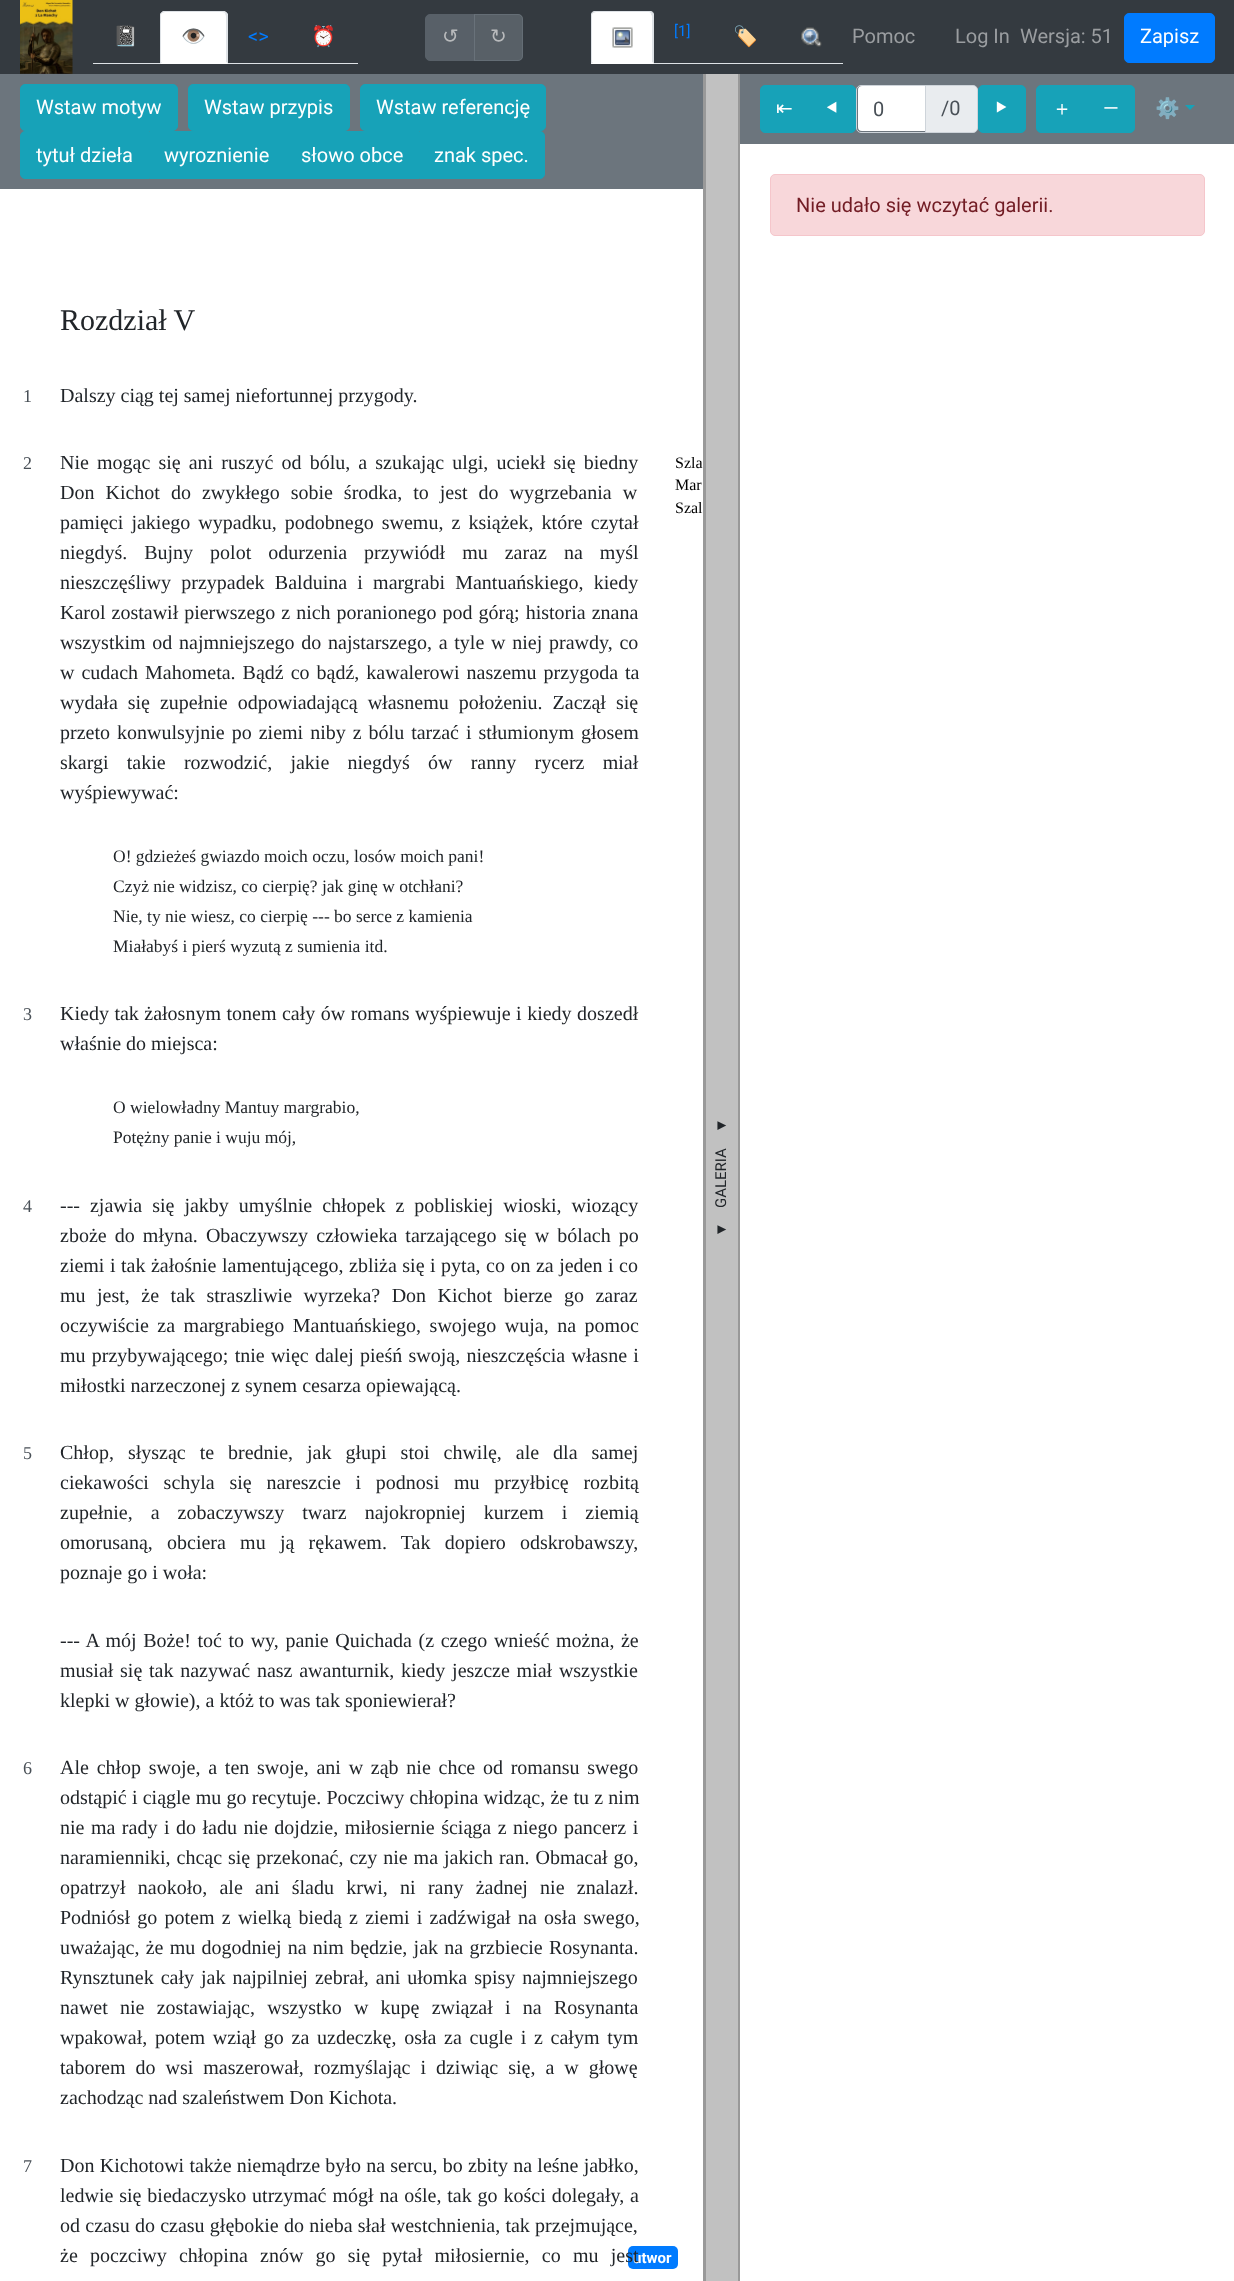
(async () => {
  const canvas = document.querySelector("canvas");
  canvas.width = 1234;
  canvas.height = 2281;
  const ctx = canvas.getContext("2d");
  ctx.miterLimit = 4;
  ctx.fontKerning = "normal";
  async function loadImage(src) {
    const img = new Image();
    img.src = src;
    await img.decode();
    return img;
  }
  let path;

  ctx.fillStyle = "#ffffff";
  ctx.fillRect(0, 0, 1234, 2281);
  ctx.fillStyle = "#343a40";
  ctx.fillRect(0, 0, 1234, 74);
  ctx.drawImage(await loadImage("img/1.png"), 20, 0, 53, 74);
  ctx.fillStyle = "#dee2e6";
  ctx.fillRect(93, 63, 265, 1);
  ctx.fillStyle = "#ffffff";
  ctx.beginPath();
  ctx.roundRect(160, 11, 68, 53, [5, 5, 0, 0]);
  ctx.fill();
  ctx.fillStyle = "#dee2e6";
  path = new Path2D("M165 12L162 13H161L163 11H224L226 12L225 13C225 13 224 12 222 12Z");
  ctx.fill(path);
  path = new Path2D("M226 12L228 14V64L226 62V16L225 13Z");
  ctx.fill(path);
  ctx.fillStyle = "#ffffff";
  path = new Path2D("M228 64L226 62H162L160 64Z");
  ctx.fill(path);
  ctx.fillStyle = "#dee2e6";
  path = new Path2D("M160 64L162 62H161V16C161 15 161 14 162 13H161C160 13 160 15 160 16Z");
  ctx.fill(path);
  ctx.fillStyle = "#586068";
  ctx.beginPath();
  ctx.roundRect(425.5, 14.5, 49, 46, [4.5, 0, 0, 4.5]);
  ctx.fill();
  ctx.strokeStyle = "#586068";
  ctx.stroke();
  ctx.fillStyle = "rgba(108, 117, 125, 0.65)";
  ctx.beginPath();
  ctx.roundRect(474, 14, 49, 47, [0, 5, 5, 0]);
  ctx.fill();
  ctx.beginPath();
  ctx.roundRect(474.5, 14.5, 48, 46, [0, 4.5, 4.5, 0]);
  ctx.strokeStyle = "rgba(108, 117, 125, 0.65)";
  ctx.stroke();
  ctx.fillStyle = "#dee2e6";
  ctx.fillRect(654, 63, 189, 1);
  ctx.fillStyle = "#ffffff";
  ctx.beginPath();
  ctx.roundRect(591, 11, 63, 53, [5, 5, 0, 0]);
  ctx.fill();
  ctx.fillStyle = "#dee2e6";
  path = new Path2D("M596 12L593 13L592 12L594 11H651L653 12L651 14C651 13 650 12 649 12Z");
  ctx.fill(path);
  path = new Path2D("M653 12L654 14V64L652 62V16L651 14Z");
  ctx.fill(path);
  ctx.fillStyle = "#ffffff";
  path = new Path2D("M654 64L652 62H593L591 64Z");
  ctx.fill(path);
  ctx.fillStyle = "#dee2e6";
  path = new Path2D("M591 64V14L592 12L593 13C592 14 592 15 592 16V62H593Z");
  ctx.fill(path);
  ctx.drawImage(await loadImage("img/2.png"), 612, 27, 21, 21);
  ctx.drawImage(await loadImage("img/3.png"), 801, 27, 21, 20);
  ctx.fillStyle = "#007bff";
  ctx.beginPath();
  ctx.roundRect(1124.5, 13.5, 90, 49, 4.5);
  ctx.fill();
  ctx.strokeStyle = "#007bff";
  ctx.stroke();
  ctx.fillStyle = "#6c757d";
  ctx.fillRect(0, 74, 703, 115);
  ctx.fillStyle = "#17a2b8";
  ctx.beginPath();
  ctx.roundRect(20.5, 84.5, 157, 46, 4.5);
  ctx.fill();
  ctx.strokeStyle = "#17a2b8";
  ctx.stroke();
  ctx.beginPath();
  ctx.roundRect(188.5, 84.5, 161, 46, 4.5);
  ctx.fill();
  ctx.stroke();
  ctx.beginPath();
  ctx.roundRect(360.5, 84.5, 185, 46, 4.5);
  ctx.fill();
  ctx.stroke();
  ctx.beginPath();
  ctx.roundRect(20.5, 131.5, 129, 47, [4.5, 0, 0, 4.5]);
  ctx.fill();
  ctx.stroke();
  ctx.fillRect(150, 131, 269, 48);
  ctx.beginPath();
  ctx.roundRect(419.5, 131.5, 125, 47, [0, 4.5, 4.5, 0]);
  ctx.fill();
  ctx.stroke();
  ctx.fillStyle = "#007bff";
  ctx.beginPath();
  ctx.roundRect(628, 2246, 50, 23, 5);
  ctx.fill();
  for (const [x, y, w, h, color] of [
    [706, 74, 32, 2207, "#c1c1c1"],
    [738, 74, 2, 2207, "#999999"],
    [703, 74, 3, 2207, "#999999"],
    [740, 74, 494, 70, "#6c757d"],
  ]) {
    ctx.fillStyle = color;
    ctx.fillRect(x, y, w, h);
  }
  ctx.fillStyle = "#17a2b8";
  ctx.beginPath();
  ctx.roundRect(760.5, 85.5, 48, 47, [4.5, 0, 0, 4.5]);
  ctx.fill();
  ctx.stroke();
  ctx.beginPath();
  ctx.roundRect(808.5, 85.5, 47, 47, [0, 4.5, 4.5, 0]);
  ctx.fill();
  ctx.stroke();
  ctx.fillStyle = "#ffffff";
  ctx.beginPath();
  ctx.roundRect(858, 86, 67, 45, [4, 0, 0, 4]);
  ctx.fill();
  ctx.fillStyle = "#e9ecef";
  ctx.beginPath();
  ctx.roundRect(925.5, 85.5, 52, 47, [0, 4.5, 4.5, 0]);
  ctx.fill();
  ctx.strokeStyle = "#ced4da";
  ctx.stroke();
  ctx.beginPath();
  ctx.roundRect(856.5, 85.5, 69, 47, [4.5, 0, 0, 4.5]);
  ctx.stroke();
  ctx.fillStyle = "#17a2b8";
  ctx.beginPath();
  ctx.roundRect(978.5, 85.5, 47, 47, 4.5);
  ctx.fill();
  ctx.strokeStyle = "#17a2b8";
  ctx.stroke();
  ctx.beginPath();
  ctx.roundRect(1036.5, 85.5, 52, 47, [4.5, 0, 0, 4.5]);
  ctx.fill();
  ctx.stroke();
  ctx.beginPath();
  ctx.roundRect(1088.5, 85.5, 46, 47, [0, 4.5, 4.5, 0]);
  ctx.fill();
  ctx.stroke();
  path = new Path2D("M1185 105H1195L1190 110Z");
  ctx.fill(path);
  ctx.fillStyle = "#f8d7da";
  ctx.beginPath();
  ctx.roundRect(770.5, 174.5, 434, 61, 4.5);
  ctx.fill();
  ctx.strokeStyle = "#f5c6cb";
  ctx.stroke();
  ctx.font = "20px Noto Color Emoji";
  ctx.fillStyle = "#007bff";
  ctx.fillText("📓", 113, 43);
  ctx.fillStyle = "#495057";
  ctx.fillText("👁", 181, 43);
  ctx.font = "20px Roboto";
  ctx.fillStyle = "#007bff";
  ctx.fillText("<>", 248, 43);
  ctx.font = "20px Noto Color Emoji";
  ctx.fillText("⏰", 311, 43);
  ctx.font = "20px DejaVu Sans";
  ctx.fillStyle = "#b8babc";
  ctx.fillText("↺", 442, 43);
  ctx.fillText("↻", 490, 43);
  ctx.font = "15px Roboto";
  ctx.fillStyle = "#007bff";
  ctx.fillText("[1]", 674, 36);
  ctx.font = "20px Noto Color Emoji";
  ctx.fillText("🏷", 733, 43);
  ctx.font = "20px Roboto";
  ctx.fillStyle = "#9a9da0";
  for (const [text, x, y] of [
    ["Pomoc", 852, 43],
    ["Log In", 955, 43],
    ["Wersja: 51", 1020, 43],
  ]) {
    ctx.fillText(text, x, y);
  }
  ctx.fillStyle = "#ffffff";
  for (const [text, x, y] of [
    ["Zapisz", 1140, 43],
    ["Wstaw motyw", 36, 114],
    ["Wstaw przypis", 204, 114],
    ["Wstaw referencję", 376, 114],
    ["tytuł dzieła", 36, 162],
    ["wyroznienie", 164, 162],
    ["słowo obce", 301, 162],
    ["znak spec.", 434, 162],
  ]) {
    ctx.fillText(text, x, y);
  }
  ctx.font = "30px Liberation Serif";
  ctx.fillStyle = "#212529";
  ctx.fillText("Rozdział V", 60, 330);
  ctx.font = "18px Liberation Serif";
  ctx.fillStyle = "#495057";
  ctx.fillText("1", 23, 402);
  ctx.font = "20px Liberation Serif";
  ctx.fillStyle = "#212529";
  ctx.fillText("Dalszy ciąg tej samej niefortunnej przygody.", 60, 402);
  ctx.font = "18px Liberation Serif";
  ctx.fillStyle = "#495057";
  ctx.fillText("2", 23, 469);
  ctx.wordSpacing = "3.1px";
  ctx.font = "20px Liberation Serif";
  ctx.fillStyle = "#212529";
  ctx.fillText("Nie mogąc się ani ruszyć od bólu, a szukając ulgi, uciekł się biedny", 60, 469);
  ctx.wordSpacing = "0px";
  ctx.font = "16px Liberation Serif";
  ctx.fillStyle = "#000000";
  for (const [text, x, y] of [
    ["Szla", 675, 468],
    ["Mar", 675, 490],
    ["Szal", 675, 513],
  ]) {
    ctx.fillText(text, x, y);
  }
  ctx.wordSpacing = "6px";
  ctx.font = "20px Liberation Serif";
  ctx.fillStyle = "#212529";
  ctx.fillText("Don Kichot do zwykłego sobie środka, to jest do wygrzebania w", 60, 499);
  ctx.wordSpacing = "3.1px";
  ctx.fillText("pamięci jakiego wypadku, podobnego swemu, z książek, które czytał", 60, 529);
  ctx.wordSpacing = "12px";
  ctx.fillText("niegdyś. Bujny polot odurzenia przywiódł mu zaraz na myśl", 60, 559);
  ctx.wordSpacing = "5.25px";
  ctx.fillText("nieszczęśliwy przypadek Balduina i margrabi Mantuańskiego, kiedy", 60, 589);
  ctx.wordSpacing = "1px";
  ctx.fillText("Karol zostawił pierwszego z nich poranionego pod górą; historia znana", 60, 619);
  ctx.wordSpacing = "1.75px";
  ctx.fillText("wszystkim od najmniejszego do najstarszego, a tyle w niej prawdy, co", 60, 649);
  ctx.wordSpacing = "2px";
  ctx.fillText("w cudach Mahometa. Bądź co bądź, kawalerowi naszemu przygoda ta", 60, 679);
  ctx.wordSpacing = "5px";
  ctx.fillText("wydała się zupełnie odpowiadającą własnemu położeniu. Zaczął się", 60, 709);
  ctx.wordSpacing = "2px";
  ctx.fillText("przeto konwulsyjnie po ziemi niby z bólu tarzać i stłumionym głosem", 60, 739);
  ctx.wordSpacing = "13.25px";
  ctx.fillText("skargi takie rozwodzić, jakie niegdyś ów ranny rycerz miał", 60, 769);
  ctx.wordSpacing = "0px";
  ctx.fillText("wyśpiewywać:", 60, 799);
  ctx.font = "17.5px Liberation Serif";
  for (const [text, x, y] of [
    ["O! gdzieżeś gwiazdo moich oczu, losów moich pani!", 113, 862],
    ["Czyż nie widzisz, co cierpię? jak ginę w otchłani?", 113, 892],
    ["Nie, ty nie wiesz, co cierpię --- bo serce z kamienia", 113, 922],
    ["Miałabyś i pierś wyzutą z sumienia itd.", 113, 952],
  ]) {
    ctx.fillText(text, x, y);
  }
  ctx.font = "18px Liberation Serif";
  ctx.fillStyle = "#495057";
  ctx.fillText("3", 23, 1020);
  ctx.wordSpacing = "0.5px";
  ctx.font = "20px Liberation Serif";
  ctx.fillStyle = "#212529";
  ctx.fillText("Kiedy tak żałosnym tonem cały ów romans wyśpiewuje i kiedy doszedł", 60, 1020);
  ctx.wordSpacing = "0px";
  ctx.fillText("właśnie do miejsca:", 60, 1050);
  ctx.font = "17.5px Liberation Serif";
  ctx.fillText("O wielowładny Mantuy margrabio,", 113, 1113);
  ctx.fillText("Potężny panie i wuju mój,", 113, 1143);
  ctx.font = "18px Liberation Serif";
  ctx.fillStyle = "#495057";
  ctx.fillText("4", 23, 1212);
  ctx.wordSpacing = "5px";
  ctx.font = "20px Liberation Serif";
  ctx.fillStyle = "#212529";
  ctx.fillText("--- zjawia się jakby umyślnie chłopek z pobliskiej wioski, wiozący", 60, 1212);
  ctx.wordSpacing = "3.1px";
  ctx.fillText("zboże do młyna. Obaczywszy człowieka tarzającego się w bólach po", 60, 1242);
  ctx.wordSpacing = "0.5px";
  ctx.fillText("ziemi i tak żałośnie lamentującego, zbliża się i pyta, co on za jeden i co", 60, 1272);
  ctx.wordSpacing = "6.5px";
  ctx.fillText("mu jest, że tak straszliwie wyrzeka? Don Kichot bierze go zaraz", 60, 1302);
  ctx.wordSpacing = "3.5px";
  ctx.fillText("oczywiście za margrabiego Mantuańskiego, swojego wuja, na pomoc", 60, 1332);
  ctx.wordSpacing = "1.25px";
  ctx.fillText("mu przybywającego; tnie więc dalej pieśń swoją, nieszczęścia własne i", 60, 1362);
  ctx.wordSpacing = "0px";
  ctx.fillText("miłostki narzeczonej z synem cesarza opiewającą.", 60, 1392);
  ctx.font = "18px Liberation Serif";
  ctx.fillStyle = "#495057";
  ctx.fillText("5", 23, 1459);
  ctx.wordSpacing = "9px";
  ctx.font = "20px Liberation Serif";
  ctx.fillStyle = "#212529";
  ctx.fillText("Chłop, słysząc te brednie, jak głupi stoi chwilę, ale dla samej", 60, 1459);
  ctx.wordSpacing = "9.75px";
  ctx.fillText("ciekawości schyla się nareszcie i podnosi mu przyłbicę rozbitą", 60, 1489);
  ctx.wordSpacing = "13px";
  ctx.fillText("zupełnie, a zobaczywszy twarz najokropniej kurzem i ziemią", 60, 1519);
  ctx.wordSpacing = "9.25px";
  ctx.fillText("omorusaną, obciera mu ją rękawem. Tak dopiero odskrobawszy,", 60, 1549);
  ctx.wordSpacing = "0px";
  ctx.fillText("poznaje go i woła:", 60, 1579);
  ctx.wordSpacing = "1.6px";
  ctx.fillText("--- A mój Boże! toć to wy, panie Quichada (z czego wnieść można, że", 60, 1647);
  ctx.wordSpacing = "1.75px";
  ctx.fillText("musiał się tak nazywać nasz awanturnik, kiedy jeszcze miał wszystkie", 60, 1677);
  ctx.wordSpacing = "0px";
  ctx.fillText("klepki w głowie), a któż to was tak sponiewierał?", 60, 1707);
  ctx.font = "18px Liberation Serif";
  ctx.fillStyle = "#495057";
  ctx.fillText("6", 23, 1774);
  ctx.wordSpacing = "2.75px";
  ctx.font = "20px Liberation Serif";
  ctx.fillStyle = "#212529";
  ctx.fillText("Ale chłop swoje, a ten swoje, ani w ząb nie chce od romansu swego", 60, 1774);
  ctx.wordSpacing = "0.25px";
  ctx.fillText("odstąpić i ciągle mu go recytuje. Poczciwy chłopina widząc, że tu z nim", 60, 1804);
  ctx.wordSpacing = "1.5px";
  ctx.fillText("nie ma rady i do ładu nie dojdzie, miłosiernie ściąga z niego pancerz i", 60, 1834);
  ctx.wordSpacing = "1px";
  ctx.fillText("naramienniki, chcąc się przekonać, czy nie ma jakich ran. Obmacał go,", 60, 1864);
  ctx.wordSpacing = "7.25px";
  ctx.fillText("opatrzył naokoło, ale ani śladu krwi, ni rany żadnej nie znalazł.", 60, 1894);
  ctx.wordSpacing = "2.25px";
  ctx.fillText("Podniósł go potem z wielką biedą z ziemi i zadźwigał na osła swego,", 60, 1924);
  ctx.wordSpacing = "1.25px";
  ctx.fillText("uważając, że mu dogodniej na nim będzie, jak na grzbiecie Rosynanta.", 60, 1954);
  ctx.wordSpacing = "2px";
  ctx.fillText("Rynsztunek cały jak najpilniej zebrał, ani ułomka spisy najmniejszego", 60, 1984);
  ctx.wordSpacing = "7.25px";
  ctx.fillText("nawet nie zostawiając, wszystko w kupę związał i na Rosynanta", 60, 2014);
  ctx.wordSpacing = "2.75px";
  ctx.fillText("wpakował, potem wziął go za uzdeczkę, osła za cugle i z całym tym", 60, 2044);
  ctx.wordSpacing = "5px";
  ctx.fillText("taborem do wsi maszerował, rozmyślając i dziwiąc się, a w głowę", 60, 2074);
  ctx.wordSpacing = "0px";
  ctx.fillText("zachodząc nad szaleństwem Don Kichota.", 60, 2104);
  ctx.font = "18px Liberation Serif";
  ctx.fillStyle = "#495057";
  ctx.fillText("7", 23, 2172);
  ctx.wordSpacing = "0.25px";
  ctx.font = "20px Liberation Serif";
  ctx.fillStyle = "#212529";
  ctx.fillText("Don Kichotowi także niemądrze było na sercu, bo zbity na leśne jabłko,", 60, 2172);
  ctx.wordSpacing = "0.9px";
  ctx.fillText("ledwie się biedaczysko utrzymać mógł na ośle, tak go kości dolegały, a", 60, 2202);
  ctx.wordSpacing = "0.25px";
  ctx.fillText("od czasu do czasu głębokie do nieba słał westchnienia, tak przejmujące,", 60, 2232);
  ctx.wordSpacing = "0px";
  ctx.font = "bold 15px Roboto";
  ctx.fillStyle = "#ffffff";
  ctx.fillText("utwor", 633, 2263);
  ctx.wordSpacing = "7.25px";
  ctx.font = "20px Liberation Serif";
  ctx.fillStyle = "#212529";
  ctx.fillText("że poczciwy chłopina znów go się pytał miłosiernie, co mu jest", 60, 2262);
  ctx.wordSpacing = "0px";
  ctx.font = "15px Liberation Sans";
  ctx.save();
  ctx.translate(726, 1133);
  ctx.rotate(-90 * Math.PI / 180);
  ctx.fillText("▼", 0, 0);
  ctx.restore();
  ctx.font = "15px Roboto";
  ctx.save();
  ctx.translate(726, 1208);
  ctx.rotate(-90 * Math.PI / 180);
  ctx.fillText("GALERIA", 0, 0);
  ctx.restore();
  ctx.font = "15px Liberation Sans";
  ctx.save();
  ctx.translate(726, 1237);
  ctx.rotate(-90 * Math.PI / 180);
  ctx.fillText("▼", 0, 0);
  ctx.restore();
  ctx.font = "20px DejaVu Sans";
  ctx.fillStyle = "#ffffff";
  ctx.fillText("⇤", 776, 115);
  ctx.font = "20px FreeSans";
  ctx.fillText("⯇", 824, 115);
  ctx.font = "20px Roboto";
  ctx.fillStyle = "#495057";
  ctx.fillText("0", 873, 116);
  ctx.fillText("/0", 941, 115);
  ctx.font = "20px FreeSans";
  ctx.fillStyle = "#ffffff";
  ctx.fillText("⯈", 993, 115);
  ctx.font = "500 20px WenQuanYi Zen Hei";
  ctx.fillText("＋", 1052, 115);
  ctx.font = "20px Roboto";
  ctx.fillText("—", 1103, 115);
  ctx.font = "20px Noto Color Emoji";
  ctx.fillStyle = "#17a2b8";
  ctx.fillText("⚙", 1155, 115);
  ctx.font = "20px Roboto";
  ctx.fillStyle = "#721c24";
  ctx.fillText("Nie udało się wczytać galerii.", 796, 212);
})();
